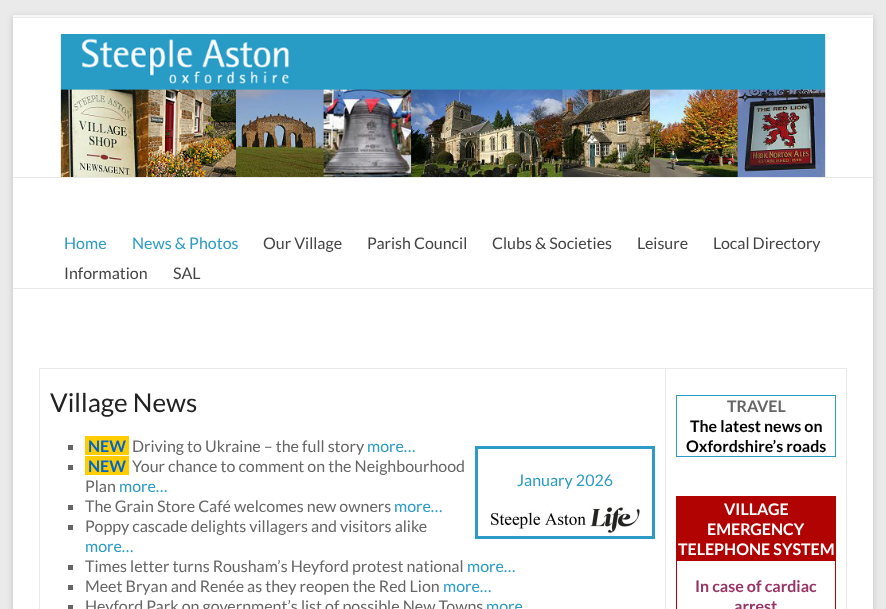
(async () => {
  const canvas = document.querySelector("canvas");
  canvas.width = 886;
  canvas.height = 609;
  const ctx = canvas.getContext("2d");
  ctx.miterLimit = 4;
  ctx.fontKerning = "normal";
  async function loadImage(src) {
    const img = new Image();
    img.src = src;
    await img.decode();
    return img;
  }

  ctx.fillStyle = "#eaeaea";
  ctx.fillRect(0, 0, 886, 609);
  ctx.fillStyle = "rgba(100, 100, 100, 0.3)";
  ctx.filter = "blur(3px)";
  ctx.beginPath();
  ctx.rect(13, 17, 860, 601);
  ctx.fill();
  ctx.filter = "none";
  for (const [x, y, w, h, color] of [
    [13, 18, 860, 591, "#ffffff"],
    [13, 15, 860, 2, "#f8f8f8"],
    [13, 17, 860, 1, "#eaeaea"],
  ]) {
    ctx.fillStyle = color;
    ctx.fillRect(x, y, w, h);
  }
  ctx.drawImage(await loadImage("img/1.png"), 60, 34, 766, 143);
  for (const [x, y, w, h, color] of [
    [13, 177, 860, 1, "#eaeaea"],
    [13, 288, 860, 1, "#eaeaea"],
    [665, 368, 182, 1, "#eaeaea"],
    [665, 368, 1, 241, "#eaeaea"],
    [39, 368, 627, 1, "#eaeaea"],
    [39, 368, 1, 241, "#eaeaea"],
    [68, 445, 5, 5, "#666666"],
    [85, 436, 44, 19, "#ffcc00"],
    [68, 465, 5, 5, "#666666"],
    [85, 456, 44, 19, "#ffcc00"],
    [68, 505, 5, 5, "#666666"],
    [68, 525, 5, 5, "#666666"],
    [68, 565, 5, 5, "#666666"],
    [68, 585, 5, 5, "#666666"],
    [68, 605, 5, 4, "#666666"],
  ]) {
    ctx.fillStyle = color;
    ctx.fillRect(x, y, w, h);
  }
  ctx.strokeStyle = "#2c9bc7";
  ctx.lineWidth = 3;
  ctx.strokeRect(476.5, 447.5, 177, 90);
  ctx.drawImage(await loadImage("img/2.png"), 490, 507, 150, 26);
  ctx.fillStyle = "#eaeaea";
  ctx.fillRect(846, 368, 1, 241);
  ctx.lineWidth = 1;
  ctx.strokeRect(676.5, 395.5, 159, 61);
  ctx.strokeStyle = "#b20303";
  ctx.strokeRect(676.5, 496.5, 159, 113);
  ctx.fillStyle = "#b20303";
  ctx.fillRect(677, 497, 158, 64);
  ctx.font = "16px Lato";
  ctx.fillStyle = "#2b9bc7";
  ctx.fillText("Home", 64, 249);
  ctx.fillText("News & Photos", 132, 249);
  ctx.fillStyle = "#444444";
  for (const [text, x, y] of [
    ["Our Village", 263, 249],
    ["Parish Council", 367, 249],
    ["Clubs & Societies", 492, 249],
    ["Leisure", 637, 249],
    ["Local Directory", 713, 249],
    ["Information", 64, 279],
    ["SAL", 173, 279],
  ]) {
    ctx.fillText(text, x, y);
  }
  ctx.font = "26px Lato";
  ctx.fillStyle = "#222222";
  ctx.fillText("Village News", 50, 412);
  ctx.font = "bold 16px Lato";
  ctx.fillStyle = "#0066cc";
  ctx.fillText("NEW", 88, 452);
  ctx.font = "16px Lato";
  ctx.fillStyle = "#666666";
  ctx.fillText("Driving to Ukraine – the full story", 132, 452);
  ctx.fillStyle = "#2b9bc7";
  ctx.fillText("more…", 367, 452);
  ctx.font = "bold 16px Lato";
  ctx.fillStyle = "#0066cc";
  ctx.fillText("NEW", 88, 472);
  ctx.font = "16px Lato";
  ctx.fillStyle = "#666666";
  ctx.fillText("Your chance to comment on the Neighbourhood", 132, 472);
  ctx.fillText("Plan", 85, 492);
  ctx.fillStyle = "#2b9bc7";
  ctx.fillText("more…", 119, 492);
  ctx.fillStyle = "#666666";
  ctx.fillText("The Grain Store Café welcomes new owners", 85, 512);
  ctx.fillStyle = "#2b9bc7";
  ctx.fillText("more…", 394, 512);
  ctx.fillStyle = "#666666";
  ctx.fillText("Poppy cascade delights villagers and visitors alike", 85, 532);
  ctx.fillStyle = "#2b9bc7";
  ctx.fillText("more…", 85, 552);
  ctx.fillStyle = "#666666";
  ctx.fillText("Times letter turns Rousham’s Heyford protest national", 85, 572);
  ctx.fillStyle = "#2b9bc7";
  ctx.fillText("more…", 467, 572);
  ctx.fillStyle = "#666666";
  ctx.fillText("Meet Bryan and Renée as they reopen the Red Lion", 85, 592);
  ctx.fillStyle = "#2b9bc7";
  ctx.fillText("more…", 443, 592);
  ctx.fillStyle = "#666666";
  ctx.fillText("Heyford Park on government’s list of possible New Towns", 85, 612);
  ctx.fillStyle = "#2b9bc7";
  ctx.fillText("more", 486, 612);
  ctx.fillText("January 2026", 517, 486);
  ctx.font = "bold 16px Lato";
  ctx.fillStyle = "#666666";
  ctx.fillText("TRAVEL", 727, 412);
  ctx.fillStyle = "#000000";
  ctx.fillText("The latest news on", 690, 432);
  ctx.fillText("Oxfordshire’s roads", 686, 452);
  ctx.fillStyle = "#ffffff";
  for (const [text, x, y] of [
    ["VILLAGE", 724, 515],
    ["EMERGENCY", 707, 535],
    ["TELEPHONE SYSTEM", 678, 555],
  ]) {
    ctx.fillText(text, x, y);
  }
  ctx.fillStyle = "#993366";
  ctx.fillText("In case of cardiac", 695, 592);
  ctx.fillText("arrest", 734, 612);
})();
